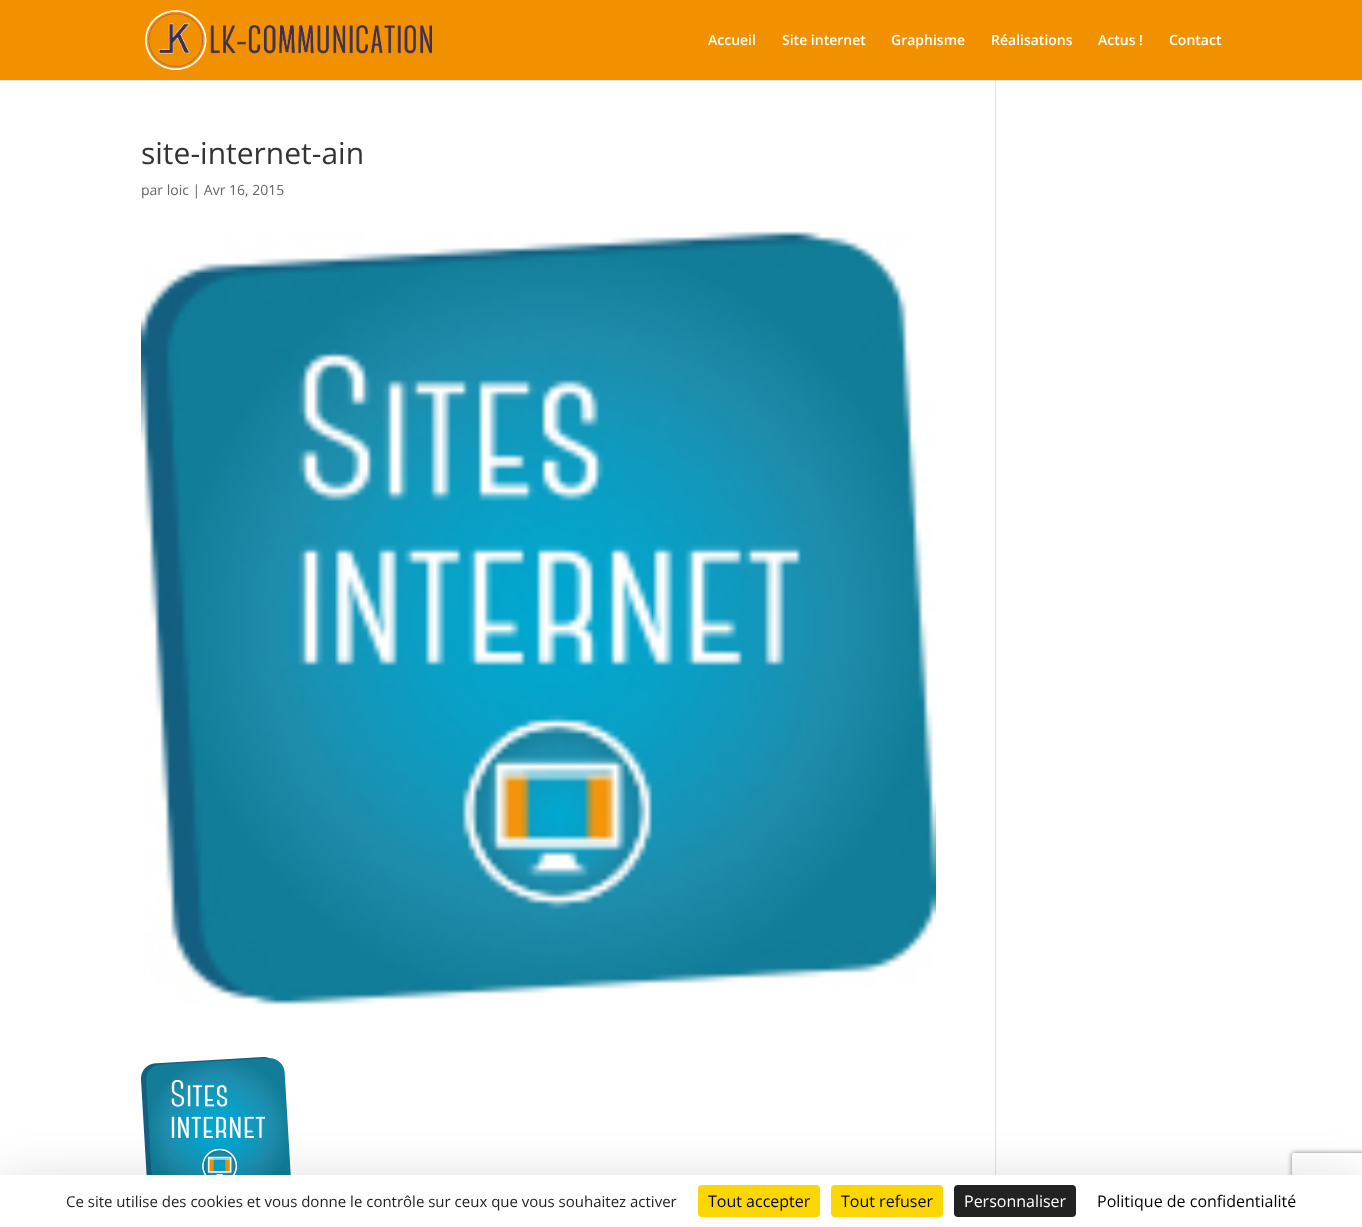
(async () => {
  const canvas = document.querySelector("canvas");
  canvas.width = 1362;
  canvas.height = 1227;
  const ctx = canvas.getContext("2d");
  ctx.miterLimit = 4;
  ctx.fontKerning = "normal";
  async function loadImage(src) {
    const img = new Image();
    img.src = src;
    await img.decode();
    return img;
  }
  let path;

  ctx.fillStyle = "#ffffff";
  ctx.fillRect(0, 0, 1362, 1227);
  ctx.fillStyle = "#e6e6e6";
  ctx.fillRect(0, 80, 1362, 1);
  ctx.fillStyle = "#f29100";
  ctx.fillRect(0, 0, 1362, 80);
  ctx.drawImage(await loadImage("img/1.png"), 145, 10, 287, 60);
  ctx.drawImage(await loadImage("img/2.png"), 141, 231, 795, 774);
  ctx.drawImage(await loadImage("img/3.png"), 141, 1057, 150, 118);
  ctx.fillStyle = "#e2e2e2";
  ctx.fillRect(995, 80, 1, 1095);
  ctx.fillStyle = "#cbcbcb";
  ctx.fillRect(995, 80, 1, 1);
  ctx.fillStyle = "rgba(0, 0, 0, 0.25)";
  ctx.filter = "blur(30px)";
  ctx.beginPath();
  ctx.rect(0, 1195, 1362, 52);
  ctx.fill();
  ctx.filter = "none";
  ctx.save();
  path = new Path2D("M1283 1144H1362V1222H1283ZM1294 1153H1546C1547 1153 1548 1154 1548 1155V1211C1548 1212 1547 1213 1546 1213H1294C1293 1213 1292 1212 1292 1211V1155C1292 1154 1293 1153 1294 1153Z");
  ctx.clip(path, "evenodd");
  ctx.fillStyle = "#808080";
  ctx.filter = "blur(2.5px)";
  ctx.beginPath();
  ctx.roundRect(1292, 1153, 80, 60, 2);
  ctx.fill();
  ctx.filter = "none";
  ctx.restore();
  ctx.fillStyle = "#ffffff";
  ctx.fillRect(0, 1175, 1362, 52);
  ctx.fillStyle = "#fbd600";
  ctx.beginPath();
  ctx.roundRect(698, 1185, 122, 32, 4);
  ctx.fill();
  ctx.beginPath();
  ctx.roundRect(831, 1185, 112, 32, 4);
  ctx.fill();
  ctx.fillStyle = "#222222";
  ctx.beginPath();
  ctx.roundRect(954, 1185, 122, 32, 4);
  ctx.fill();
  ctx.font = "600 14px Open Sans";
  ctx.fillStyle = "#ffffff";
  for (const [text, x, y] of [
    ["Accueil", 708, 45],
    ["Site internet", 782, 45],
    ["Graphisme", 891, 45],
    ["Réalisations", 991, 45],
    ["Actus !", 1098, 45],
    ["Contact", 1169, 45],
  ]) {
    ctx.fillText(text, x, y);
  }
  ctx.font = "30px Open Sans";
  ctx.fillStyle = "#333333";
  ctx.fillText("site-internet-ain", 141, 164);
  ctx.font = "14px Open Sans";
  ctx.fillStyle = "#666666";
  ctx.fillText("par loic | Avr 16, 2015", 141, 195);
  ctx.font = "15px Open Sans";
  ctx.fillStyle = "#222222";
  ctx.fillText("Ce site utilise des cookies et vous donne le contrôle sur ceux que vous souhaitez activer", 66, 1207);
  ctx.font = "16px Open Sans";
  ctx.fillStyle = "#000000";
  ctx.fillText("Tout accepter", 708, 1207);
  ctx.fillText("Tout refuser", 841, 1207);
  ctx.fillStyle = "#ffffff";
  ctx.fillText("Personnaliser", 964, 1207);
  ctx.fillStyle = "#000000";
  ctx.fillText("Politique de confidentialité", 1097, 1207);
})();
